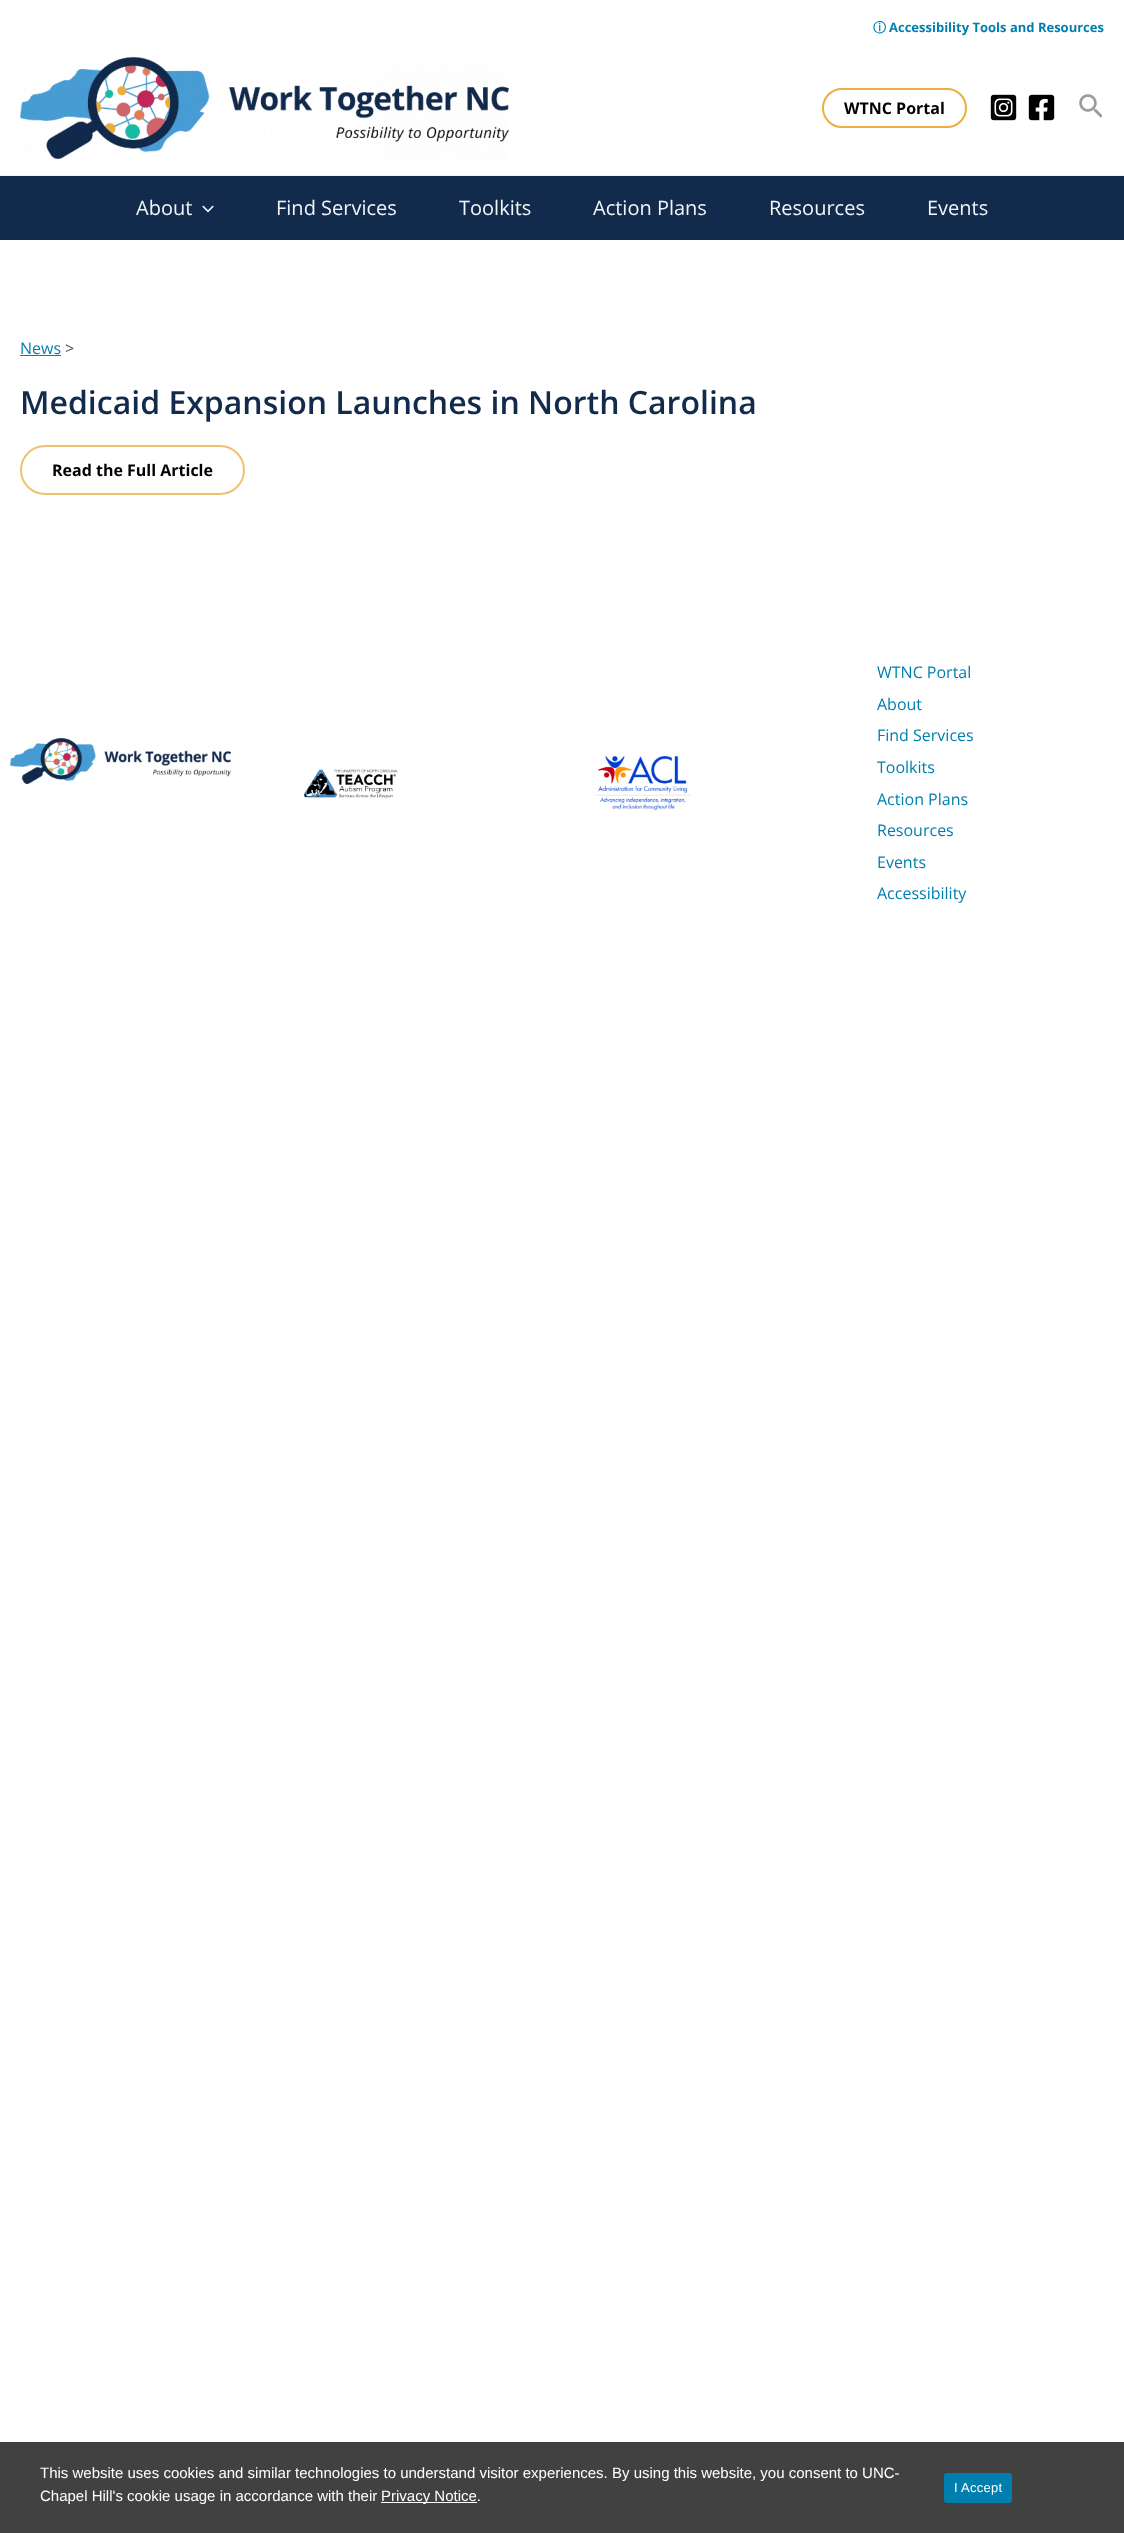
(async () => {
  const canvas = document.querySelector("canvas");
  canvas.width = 1124;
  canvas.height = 2533;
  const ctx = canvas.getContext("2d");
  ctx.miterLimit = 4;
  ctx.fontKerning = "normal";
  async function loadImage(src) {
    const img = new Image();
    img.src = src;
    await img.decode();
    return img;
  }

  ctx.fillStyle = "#ffffff";
  ctx.fillRect(0, 0, 1124, 2533);
  ctx.fillStyle = "#f2f5f7";
  ctx.fillRect(0, 175, 1124, 1);
  ctx.drawImage(await loadImage("img/1.png"), 20, 57, 489, 102);
  ctx.beginPath();
  ctx.roundRect(823, 89, 143, 38, 19);
  ctx.strokeStyle = "#ecae3f";
  ctx.lineWidth = 2;
  ctx.stroke();
  ctx.drawImage(await loadImage("img/2.png"), 990, 94, 27, 27);
  ctx.drawImage(await loadImage("img/3.png"), 1028, 94, 27, 27);
  ctx.drawImage(await loadImage("img/4.png"), 1079, 94, 23, 24);
  ctx.fillStyle = "#122a4b";
  ctx.fillRect(0, 176, 1124, 64);
  ctx.drawImage(await loadImage("img/5.png"), 202, 205, 12, 8);
  ctx.fillStyle = "#007fae";
  ctx.fillRect(20, 355, 41, 1);
  ctx.beginPath();
  ctx.roundRect(21, 446, 223, 48, 24);
  ctx.strokeStyle = "#f0c26f";
  ctx.stroke();
  ctx.drawImage(await loadImage("img/6.png"), 10, 738, 221, 46);
  ctx.drawImage(await loadImage("img/7.png"), 303, 769, 95, 30);
  ctx.drawImage(await loadImage("img/8.png"), 595, 756, 96, 55);
  ctx.fillStyle = "#414141";
  ctx.fillRect(0, 2442, 1124, 91);
  ctx.fillStyle = "#ffffff";
  ctx.fillRect(381, 2502, 96, 1);
  ctx.fillStyle = "#007fae";
  ctx.beginPath();
  ctx.roundRect(944, 2473, 68, 30, 3);
  ctx.fill();
  ctx.font = "bold 13px WenQuanYi Zen Hei";
  ctx.fillText("ⓘ", 873, 32);
  ctx.font = "bold 13px Open Sans";
  ctx.fillText("Accessibility Tools and Resources", 889, 32);
  ctx.font = "bold 16px Open Sans";
  ctx.fillStyle = "#000000";
  ctx.fillText("WTNC Portal", 844, 114);
  ctx.font = "20px Open Sans";
  ctx.fillStyle = "#f2f5f7";
  for (const [text, x, y] of [
    ["About", 136, 215],
    ["Find Services", 276, 215],
    ["Toolkits", 459, 215],
    ["Action Plans", 593, 215],
    ["Resources", 769, 215],
    ["Events", 927, 215],
  ]) {
    ctx.fillText(text, x, y);
  }
  ctx.font = "16px Open Sans";
  ctx.fillStyle = "#007fae";
  ctx.fillText("News", 20, 354);
  ctx.fillStyle = "#484848";
  ctx.fillText(">", 65, 354);
  ctx.font = "600 32px Open Sans";
  ctx.fillStyle = "#122a4b";
  ctx.fillText("Medicaid Expansion Launches in North Carolina", 20, 414);
  ctx.font = "bold 16px Open Sans";
  ctx.fillStyle = "#000000";
  ctx.fillText("Read the Full Article", 52, 476);
  ctx.font = "16px Open Sans";
  ctx.fillStyle = "#007fae";
  for (const [text, x, y] of [
    ["WTNC Portal", 877, 678],
    ["About", 877, 710],
    ["Find Services", 877, 741],
    ["Toolkits", 877, 773],
    ["Action Plans", 877, 805],
    ["Resources", 877, 836],
    ["Events", 877, 868],
    ["Accessibility", 877, 899],
  ]) {
    ctx.fillText(text, x, y);
  }
  ctx.font = "15px Liberation Sans";
  ctx.fillStyle = "#ffffff";
  for (const [text, x, y] of [
    ["This website uses cookies and similar technologies to understand visitor experiences. By using this website, you consent to UNC-", 40, 2478],
    ["Chapel Hill's cookie usage in accordance with their", 40, 2501],
    ["Privacy Notice.", 381, 2501],
  ]) {
    ctx.fillText(text, x, y);
  }
  ctx.letterSpacing = "0.25px";
  ctx.font = "13px Liberation Sans";
  ctx.fillText("I Accept", 954, 2492);
})();
